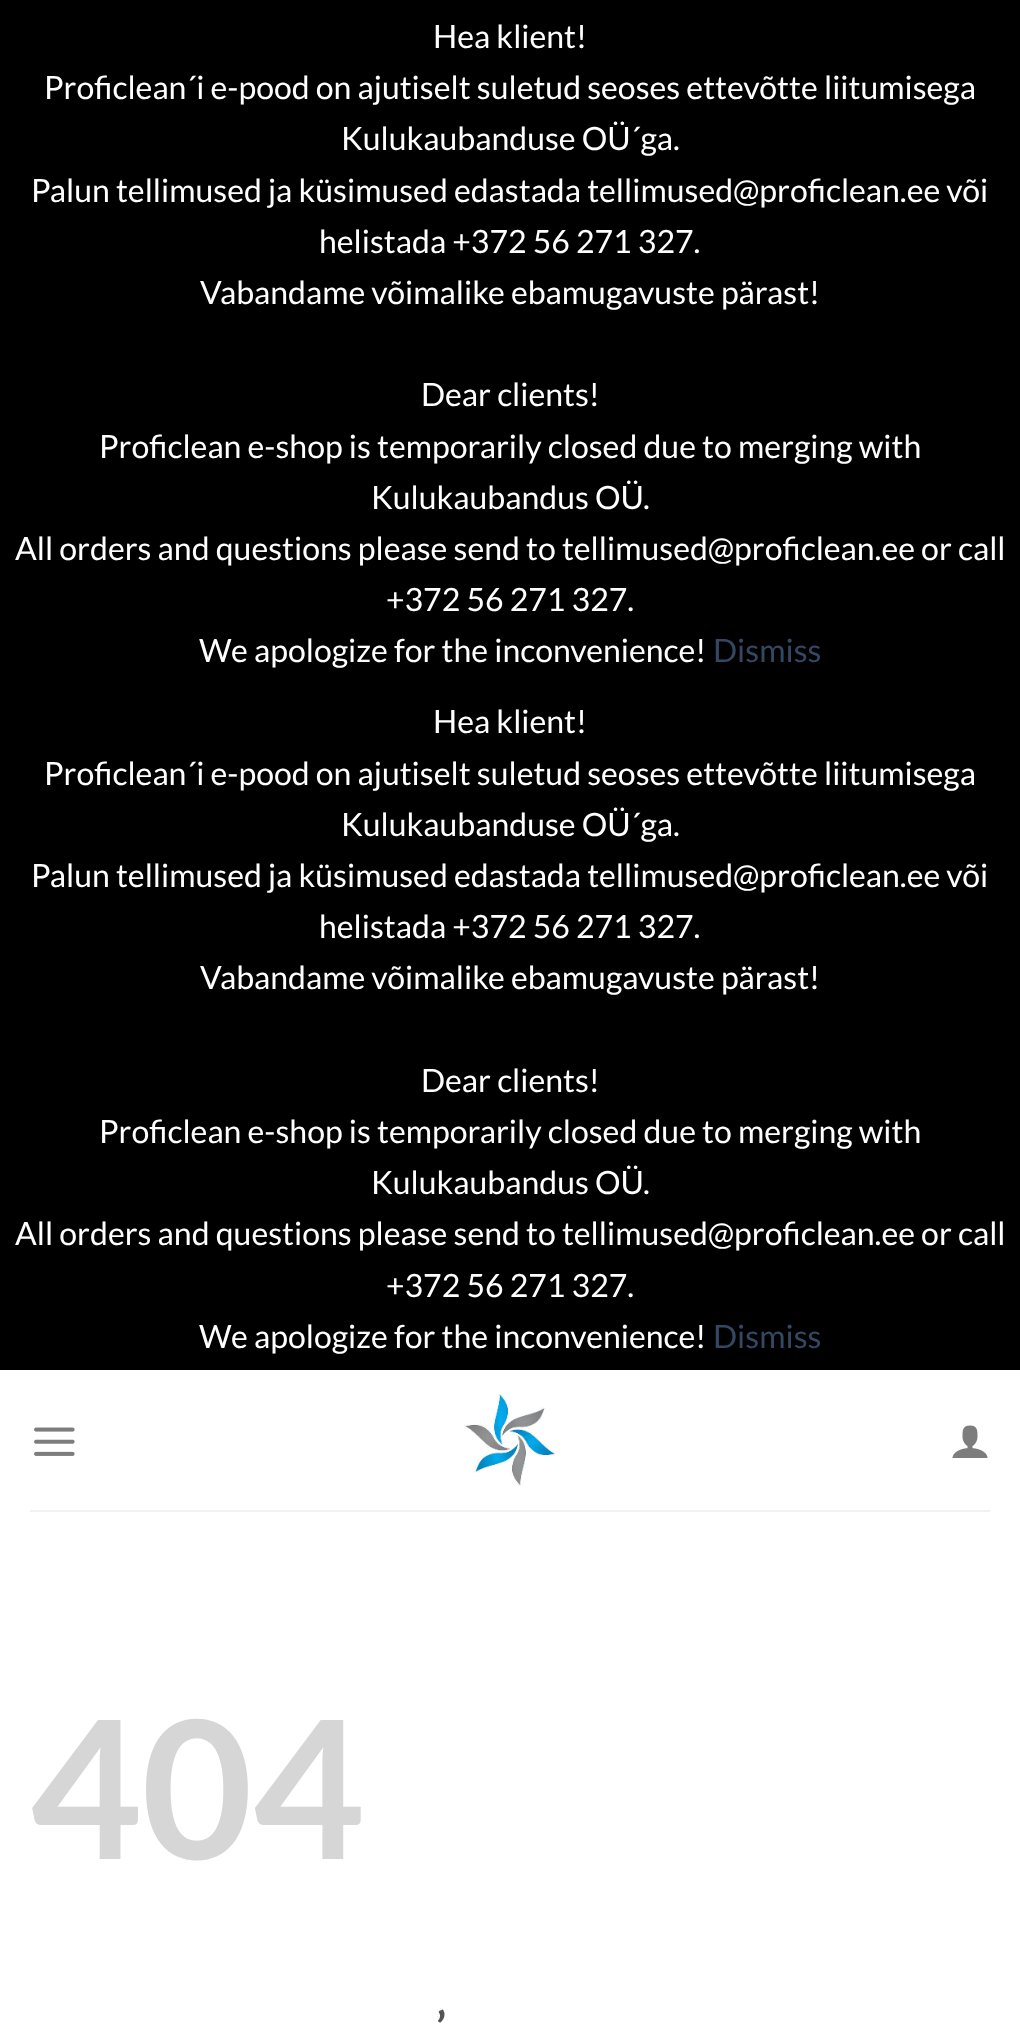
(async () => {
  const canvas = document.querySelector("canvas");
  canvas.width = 1020;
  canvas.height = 2025;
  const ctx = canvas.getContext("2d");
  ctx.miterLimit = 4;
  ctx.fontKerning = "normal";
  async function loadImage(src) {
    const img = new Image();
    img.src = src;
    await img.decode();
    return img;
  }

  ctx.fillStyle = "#000000";
  ctx.fillRect(0, 0, 1020, 2025);
  ctx.fillStyle = "#ffffff";
  ctx.fillRect(0, 1370, 1020, 655);
  ctx.drawImage(await loadImage("img/1.png"), 34, 1427, 41, 29);
  ctx.drawImage(await loadImage("img/2.png"), 464, 1394, 92, 92);
  ctx.drawImage(await loadImage("img/3.png"), 952, 1425, 36, 33);
  ctx.fillStyle = "#f1f1f1";
  ctx.fillRect(30, 1510, 960, 2);
  ctx.font = "32px Lato";
  ctx.fillStyle = "#ffffff";
  for (const [text, x, y] of [
    ["Hea klient!", 433, 48],
    ["Proficlean´i e-pood on ajutiselt suletud seoses ettevõtte liitumisega", 44, 99],
    ["Kulukaubanduse OÜ´ga.", 341, 150],
    ["Palun tellimused ja küsimused edastada tellimused@proficlean.ee või", 31, 202],
    ["helistada +372 56 271 327.", 319, 253],
    ["Vabandame võimalike ebamugavuste pärast!", 200, 304],
    ["Dear clients!", 421, 406],
    ["Proficlean e-shop is temporarily closed due to merging with", 99, 458],
    ["Kulukaubandus OÜ.", 371, 509],
    ["All orders and questions please send to tellimused@proficlean.ee or call", 15, 560],
    ["+372 56 271 327.", 386, 611],
    ["We apologize for the inconvenience!", 199, 662],
  ]) {
    ctx.fillText(text, x, y);
  }
  ctx.fillStyle = "#334862";
  ctx.fillText("Dismiss", 713, 662);
  ctx.fillStyle = "#ffffff";
  for (const [text, x, y] of [
    ["Hea klient!", 433, 733],
    ["Proficlean´i e-pood on ajutiselt suletud seoses ettevõtte liitumisega", 44, 785],
    ["Kulukaubanduse OÜ´ga.", 341, 836],
    ["Palun tellimused ja küsimused edastada tellimused@proficlean.ee või", 31, 887],
    ["helistada +372 56 271 327.", 319, 938],
    ["Vabandame võimalike ebamugavuste pärast!", 200, 989],
    ["Dear clients!", 421, 1092],
    ["Proficlean e-shop is temporarily closed due to merging with", 99, 1143],
    ["Kulukaubandus OÜ.", 371, 1194],
    ["All orders and questions please send to tellimused@proficlean.ee or call", 15, 1245],
    ["+372 56 271 327.", 386, 1297],
    ["We apologize for the inconvenience!", 199, 1348],
  ]) {
    ctx.fillText(text, x, y);
  }
  ctx.fillStyle = "#334862";
  ctx.fillText("Dismiss", 713, 1348);
  ctx.font = "bold 192px Lato";
  ctx.fillStyle = "#d6d6d6";
  ctx.fillText("404", 30, 1859);
  ctx.font = "bold 45px Lato";
  ctx.fillStyle = "#555555";
  ctx.fillText("’", 436, 2044);
})();
